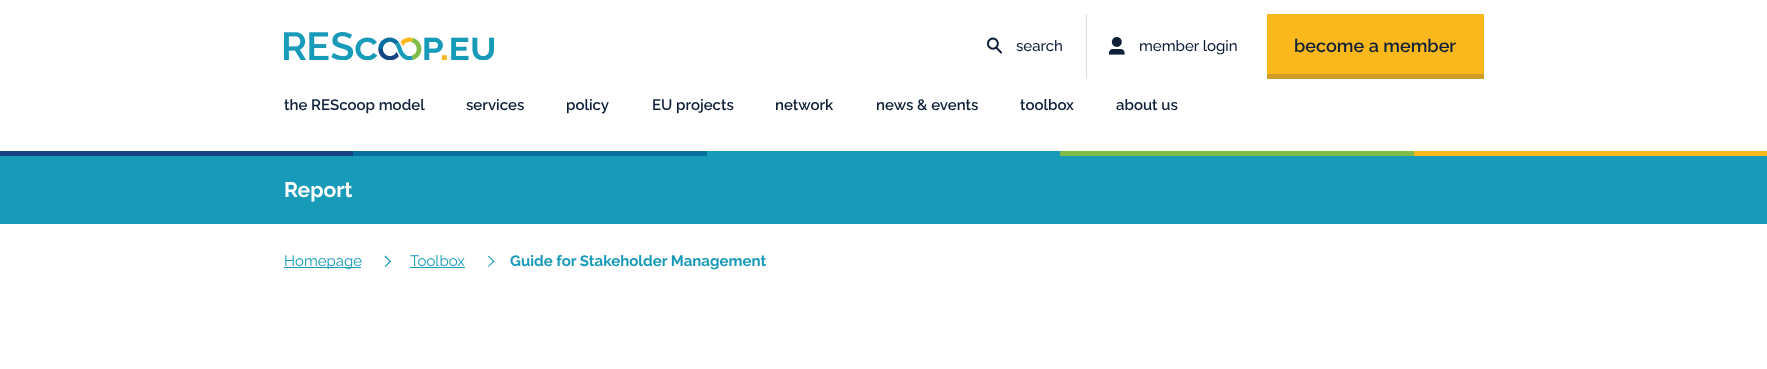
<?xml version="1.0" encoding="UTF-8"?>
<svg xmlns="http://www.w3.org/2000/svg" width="1767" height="369">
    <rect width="100%" height="100%" fill="#FFFFFF"/>
    <image x="0" y="151" width="1767" height="5" href="img_01.png"/>
    <image x="284" y="32" width="210" height="28" href="img_02.png"/>
    <image x="987" y="37" width="15" height="17" href="img_03.png"/>
    <text x="1016" y="51" font-family="Raleway" font-size="15" font-weight="500" fill="#0E1F38">search</text>
    <rect x="1086" y="14" width="1" height="65" fill="#D8DCE1"/>
    <image x="1109" y="37" width="16" height="18" href="img_04.png"/>
    <text x="1139" y="51" font-family="Raleway" font-size="15" font-weight="500" fill="#0E1F38">member login</text>
    <rect x="1267" y="14" width="217" height="60" fill="#FBB81D"/>
    <rect x="1267" y="74" width="217" height="5" fill="#CE9C27"/>
    <text x="1294" y="52" font-family="Raleway" font-size="18" font-weight="600" fill="#0E1F38">become a member</text>
    <text x="284" y="110" font-family="Raleway" font-size="15" font-weight="600" fill="#0E1F38">the REScoop model</text>
    <text x="466" y="110" font-family="Raleway" font-size="15" font-weight="600" fill="#0E1F38">services</text>
    <text x="566" y="110" font-family="Raleway" font-size="15" font-weight="600" fill="#0E1F38">policy</text>
    <text x="652" y="110" font-family="Raleway" font-size="15" font-weight="600" fill="#0E1F38">EU projects</text>
    <text x="775" y="110" font-family="Raleway" font-size="15" font-weight="600" fill="#0E1F38">network</text>
    <text x="876" y="110" font-family="Raleway" font-size="15" font-weight="600" fill="#0E1F38">news &amp; events</text>
    <text x="1020" y="110" font-family="Raleway" font-size="15" font-weight="600" fill="#0E1F38">toolbox</text>
    <text x="1116" y="110" font-family="Raleway" font-size="15" font-weight="600" fill="#0E1F38">about us</text>
    <rect x="0" y="156" width="1767" height="68" fill="#189BB9"/>
    <text x="284" y="197" font-family="Raleway" font-size="21" font-weight="700" fill="#FFFFFF">Report</text>
    <rect x="284" y="267" width="77" height="1" fill="#189BB9"/>
    <text x="284" y="266" font-family="Raleway" font-size="15" fill="#189BB9">Homepage</text>
    <path d="M 385.5 255.5 L 391 261.5 L 390 262 L 384.5 256.5 Z" fill="#189BB9"/>
    <path d="M 390 260.5 L 391 261.5 L 385.5 267 L 384.5 266.5 Z" fill="#189BB9"/>
    <text x="410" y="266" font-family="Raleway" font-size="15" fill="#189BB9">Toolbox</text>
    <rect x="410" y="267" width="55" height="1" fill="#189BB9"/>
    <path d="M 488.5 255.5 L 494.5 261.5 L 493.5 262 L 488 256.5 Z" fill="#189BB9"/>
    <path d="M 493.5 260.5 L 494.5 261.5 L 488.5 267 L 488 266.5 Z" fill="#189BB9"/>
    <text x="510" y="266" font-family="Raleway" font-size="15" font-weight="700" fill="#189BB9">Guide for Stakeholder Management</text>
</svg>
